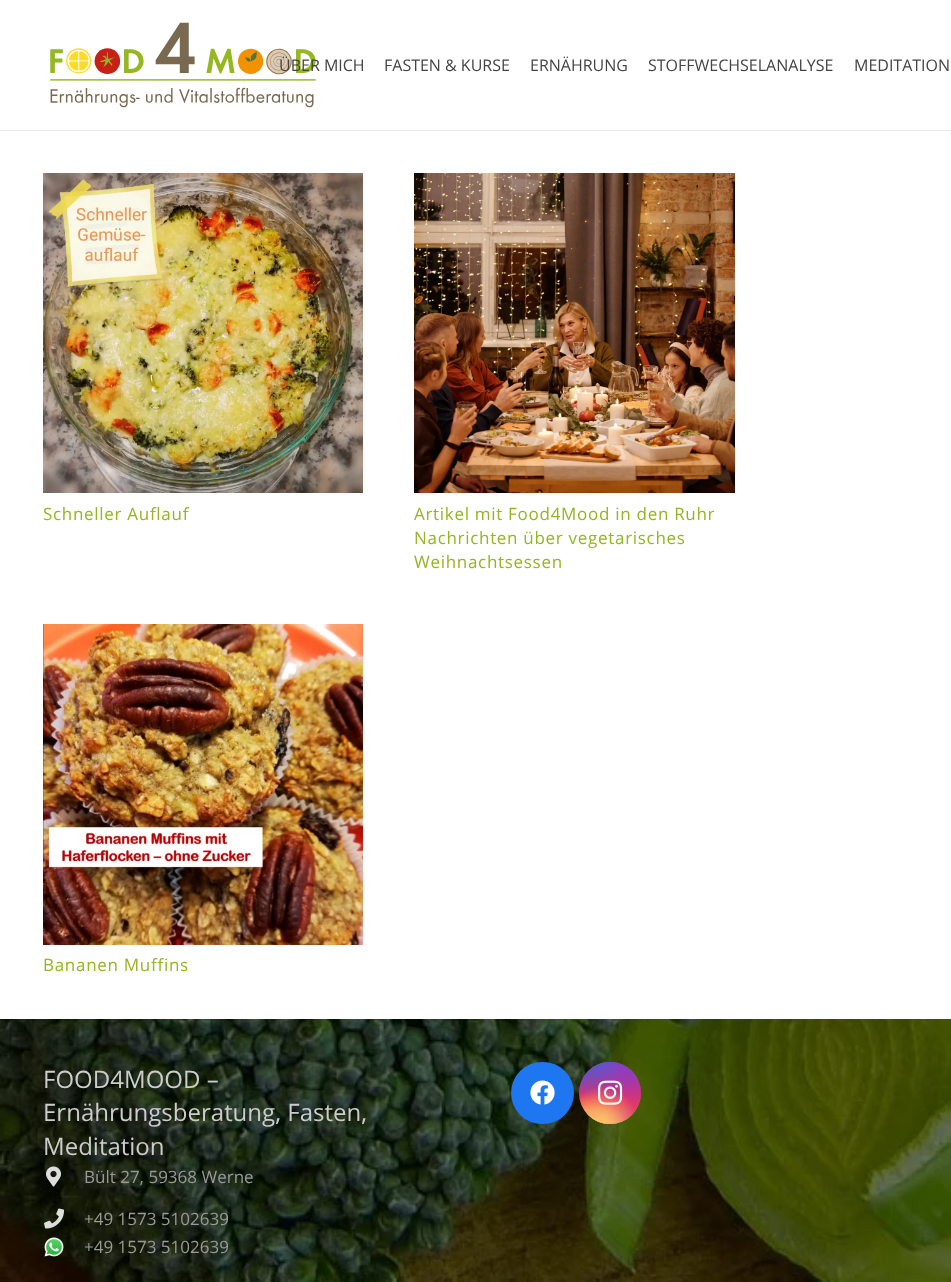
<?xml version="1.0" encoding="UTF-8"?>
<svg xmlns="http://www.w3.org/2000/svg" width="951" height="1282">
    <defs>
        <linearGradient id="g1" gradientUnits="userSpaceOnUse" x1="610" y1="1062" x2="610" y2="1124"><stop offset="0" stop-color="#6559CA"/><stop offset="0.3" stop-color="#BC318F"/><stop offset="0.5" stop-color="#E42E66"/><stop offset="0.7" stop-color="#FA5332"/><stop offset="1" stop-color="#FFDC80"/></linearGradient>
        <radialGradient id="g2" gradientUnits="userSpaceOnUse" cx="641" cy="1124" r="88"><stop offset="0" stop-color="#D9317A"/><stop offset="1" stop-color="#D9317A" stop-opacity="0"/></radialGradient>
        <radialGradient id="g3" gradientUnits="userSpaceOnUse" cx="0" cy="0" r="1" gradientTransform="matrix(53 0 0 105 616 1050)"><stop offset="0" stop-color="#893DC2"/><stop offset="0.5" stop-color="#893DC2" stop-opacity="0"/></radialGradient>
        <radialGradient id="g4" gradientUnits="userSpaceOnUse" cx="641" cy="1062" r="88"><stop offset="0" stop-color="#893DC2"/><stop offset="0.5" stop-color="#893DC2" stop-opacity="0"/></radialGradient>
        <radialGradient id="g5" gradientUnits="userSpaceOnUse" cx="0" cy="0" r="1" gradientTransform="matrix(70 0 0 132 591 1031)"><stop offset="0" stop-color="#5258CF"/><stop offset="0.5" stop-color="#5258CF" stop-opacity="0"/></radialGradient>
        <radialGradient id="g6" gradientUnits="userSpaceOnUse" cx="0" cy="0" r="1" gradientTransform="matrix(88 0 0 110 579 1047)"><stop offset="0" stop-color="#5258CF"/><stop offset="0.5" stop-color="#5258CF" stop-opacity="0"/></radialGradient>
        <radialGradient id="g7" gradientUnits="userSpaceOnUse" cx="585" cy="1149" r="103"><stop offset="0" stop-color="#FEDA7E"/><stop offset="0.5" stop-color="#FEDA7E" stop-opacity="0"/></radialGradient>
        <radialGradient id="g8" gradientUnits="userSpaceOnUse" cx="601" cy="1124" r="74"><stop offset="0" stop-color="#FEC564"/><stop offset="0.5" stop-color="#FEC564" stop-opacity="0"/></radialGradient>
    </defs>
    <rect width="100%" height="100%" fill="#FFFFFF"/>
    <rect x="0" y="130" width="951" height="1" fill="#EBEBEB"/>
    <image x="50" y="22" width="266" height="86" href="img_01.png"/>
    <text x="279" y="71" font-family="'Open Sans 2'" font-size="16" fill="#444444">ÜBER MICH</text>
    <text x="384" y="71" font-family="'Open Sans 2'" font-size="16" fill="#444444">FASTEN &amp; KURSE</text>
    <text x="530" y="71" font-family="'Open Sans 2'" font-size="16" fill="#444444">ERNÄHRUNG</text>
    <text x="648" y="71" font-family="'Open Sans 2'" font-size="16" fill="#444444">STOFFWECHSELANALYSE</text>
    <text x="854" y="71" font-family="'Open Sans 2'" font-size="16" fill="#444444">MEDITATION</text>
    <image x="43" y="173" width="320" height="320" href="img_02.png"/>
    <text x="43" y="520" font-family="Open Sans" font-size="17" letter-spacing="0.7" fill="#94B622">Schneller Auflauf</text>
    <image x="414" y="173" width="321" height="320" href="img_03.png"/>
    <text font-family="Open Sans" font-size="17" letter-spacing="0.7" fill="#94B622">
        <tspan x="414" y="520">Artikel mit Food4Mood in den Ruhr</tspan>
        <tspan x="414" y="544">Nachrichten über vegetarisches</tspan>
        <tspan x="414" y="568">Weihnachtsessen</tspan>
    </text>
    <image x="43" y="624" width="320" height="321" href="img_04.png"/>
    <text x="43" y="971" font-family="Open Sans" font-size="17" letter-spacing="0.7" fill="#94B622">Bananen Muffins</text>
    <image x="0" y="1019" width="951" height="263" href="img_05.png"/>
    <text font-family="Open Sans" font-size="24" fill="#CCCCCC">
        <tspan x="43" y="1088">FOOD4MOOD –</tspan>
        <tspan x="43" y="1121">Ernährungsberatung, Fasten,</tspan>
        <tspan x="43" y="1155">Meditation</tspan>
    </text>
    <image x="46" y="1166" width="15" height="21" href="img_06.png"/>
    <text x="84" y="1183" font-family="'Open Sans 2'" font-size="17" fill="#999999">Bült 27, 59368 Werne</text>
    <image x="44" y="1208" width="20" height="21" href="img_07.png"/>
    <text x="84" y="1225" font-family="'Open Sans 2'" font-size="17" fill="#999999">+49 1573 5102639</text>
    <image x="44" y="1237" width="20" height="20" href="img_08.png"/>
    <text x="84" y="1253" font-family="'Open Sans 2'" font-size="17" fill="#999999">+49 1573 5102639</text>
    <rect x="511" y="1062" width="63" height="62" rx="31" fill="#1E77F0"/>
    <image x="530" y="1080" width="25" height="25" href="img_09.png"/>
    <circle cx="610" cy="1093" r="31" fill="url(#g1)"/>
    <circle cx="610" cy="1093" r="31" fill="url(#g2)"/>
    <circle cx="610" cy="1093" r="31" fill="url(#g3)"/>
    <circle cx="610" cy="1093" r="31" fill="url(#g4)"/>
    <circle cx="610" cy="1093" r="31" fill="url(#g5)"/>
    <circle cx="610" cy="1093" r="31" fill="url(#g6)"/>
    <circle cx="610" cy="1093" r="31" fill="url(#g7)"/>
    <circle cx="610" cy="1093" r="31" fill="url(#g8)"/>
    <image x="598" y="1080" width="25" height="25" href="img_10.png"/>
</svg>
